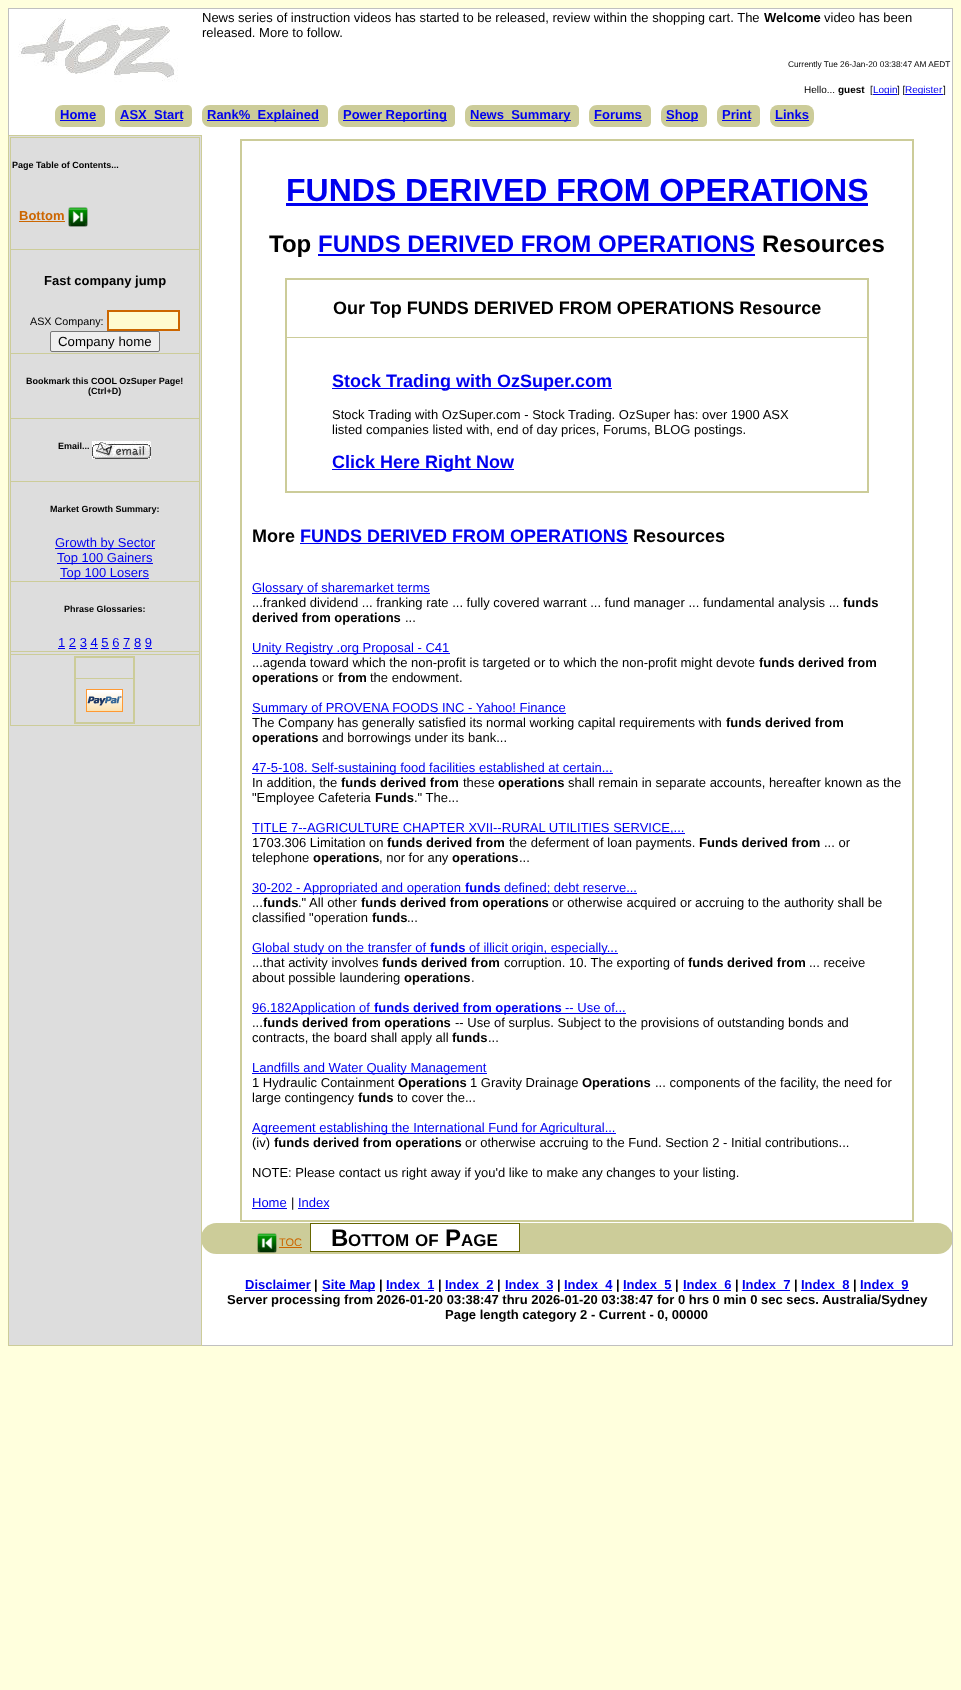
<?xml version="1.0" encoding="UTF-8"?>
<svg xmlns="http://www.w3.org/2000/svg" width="961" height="1690">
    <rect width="100%" height="100%" fill="#FFFFDD"/>
    <rect x="9" y="9" width="943" height="1336" fill="#FFFFFF"/>
    <rect x="8" y="8" width="945" height="1" fill="#C0C0C0"/>
    <rect x="201" y="1223" width="752" height="31" rx="15.5" fill="#CCCC99"/>
    <rect x="952" y="8" width="1" height="1338" fill="#C0C0C0"/>
    <rect x="202" y="1345" width="751" height="1" fill="#C0C0C0"/>
    <rect x="8" y="8" width="1" height="127" fill="#C0C0C0"/>
    <image x="18" y="18" width="160" height="64" href="img_01.png"/>
    <text x="202" y="22" font-family="Liberation Sans" font-size="13" fill="#000000">News series of instruction videos has started to be released, review within the shopping cart. The</text>
    <text x="764" y="22" font-family="Liberation Sans" font-size="13" font-weight="700" fill="#000000">Welcome</text>
    <text x="824" y="22" font-family="Liberation Sans" font-size="13" fill="#000000">video has been</text>
    <text x="202" y="37" font-family="Liberation Sans" font-size="13" fill="#000000">released. More to follow.</text>
    <text x="788" y="67" font-family="Liberation Sans" font-size="8.3" fill="#000000">Currently Tue 26-Jan-20 03:38:47 AM AEDT</text>
    <text x="804" y="93" font-family="Liberation Sans" font-size="10" fill="#000000">Hello...</text>
    <text x="838" y="93" font-family="Liberation Sans" font-size="10" font-weight="700" fill="#000000">guest</text>
    <text x="870" y="93" font-family="Liberation Sans" font-size="10" fill="#000000">[</text>
    <rect x="873" y="94" width="24" height="1" fill="#0000EE"/>
    <text x="873" y="93" font-family="Liberation Sans" font-size="10" fill="#0000EE">Login</text>
    <text x="897" y="93" font-family="Liberation Sans" font-size="10" fill="#000000">] [</text>
    <rect x="905" y="94" width="38" height="1" fill="#0000EE"/>
    <text x="905" y="93" font-family="Liberation Sans" font-size="10" fill="#0000EE">Register</text>
    <text x="943" y="93" font-family="Liberation Sans" font-size="10" fill="#000000">]</text>
    <path d="M 63 105 H 96 V 127 H 63 C 58.5 127 55 123.5 55 119 V 113 C 55 108.5 58.5 105 63 105 Z" fill="#CCCC99"/>
    <text x="60" y="119" font-family="Liberation Sans" font-size="13" font-weight="700" fill="#0000EE">Home</text>
    <path d="M 96 105 H 100.5 C 103 105 105 107 105 109.5 V 122.5 C 105 125 103 127 100.5 127 H 96 Z" fill="#CCCC99"/>
    <rect x="60" y="120" width="36" height="1" fill="#0000EE"/>
    <path d="M 123 105 H 183 V 127 H 123 C 118.5 127 115 123.5 115 119 V 113 C 115 108.5 118.5 105 123 105 Z" fill="#CCCC99"/>
    <path d="M 183 105 H 187.5 C 190 105 192 107 192 109.5 V 122.5 C 192 125 190 127 187.5 127 H 183 Z" fill="#CCCC99"/>
    <rect x="120" y="120" width="63" height="1" fill="#0000EE"/>
    <text x="120" y="119" font-family="Liberation Sans" font-size="13" font-weight="700" fill="#0000EE">ASX_Start</text>
    <path d="M 210 105 H 319 V 127 H 210 C 205.5 127 202 123.5 202 119 V 113 C 202 108.5 205.5 105 210 105 Z" fill="#CCCC99"/>
    <rect x="207" y="120" width="112" height="1" fill="#0000EE"/>
    <text x="207" y="119" font-family="Liberation Sans" font-size="13" font-weight="700" fill="#0000EE">Rank%_Explained</text>
    <path d="M 319 105 H 323.5 C 326 105 328 107 328 109.5 V 122.5 C 328 125 326 127 323.5 127 H 319 Z" fill="#CCCC99"/>
    <path d="M 346 105 H 447 V 127 H 346 C 341.5 127 338 123.5 338 119 V 113 C 338 108.5 341.5 105 346 105 Z" fill="#CCCC99"/>
    <rect x="343" y="120" width="104" height="1" fill="#0000EE"/>
    <text x="343" y="119" font-family="Liberation Sans" font-size="13" font-weight="700" fill="#0000EE">Power Reporting</text>
    <path d="M 447 105 H 451 C 453 105 455 107 455 109 V 123 C 455 125 453 127 451 127 H 447 Z" fill="#CCCC99"/>
    <path d="M 473 105 H 571 V 127 H 473 C 468.5 127 465 123.5 465 119 V 113 C 465 108.5 468.5 105 473 105 Z" fill="#CCCC99"/>
    <rect x="470" y="120" width="101" height="1" fill="#0000EE"/>
    <text x="470" y="119" font-family="Liberation Sans" font-size="13" font-weight="700" fill="#0000EE">News_Summary</text>
    <path d="M 571 105 H 575 C 577 105 579 107 579 109 V 123 C 579 125 577 127 575 127 H 571 Z" fill="#CCCC99"/>
    <path d="M 597 105 H 642 V 127 H 597 C 592.5 127 589 123.5 589 119 V 113 C 589 108.5 592.5 105 597 105 Z" fill="#CCCC99"/>
    <text x="594" y="119" font-family="Liberation Sans" font-size="13" font-weight="700" fill="#0000EE">Forums</text>
    <path d="M 642 105 H 646.5 C 649 105 651 107 651 109.5 V 122.5 C 651 125 649 127 646.5 127 H 642 Z" fill="#CCCC99"/>
    <rect x="594" y="120" width="48" height="1" fill="#0000EE"/>
    <path d="M 669 105 H 698 V 127 H 669 C 664.5 127 661 123.5 661 119 V 113 C 661 108.5 664.5 105 669 105 Z" fill="#CCCC99"/>
    <rect x="666" y="120" width="32" height="1" fill="#0000EE"/>
    <text x="666" y="119" font-family="Liberation Sans" font-size="13" font-weight="700" fill="#0000EE">Shop</text>
    <path d="M 698 105 H 702.5 C 705 105 707 107 707 109.5 V 122.5 C 707 125 705 127 702.5 127 H 698 Z" fill="#CCCC99"/>
    <path d="M 725 105 H 751 V 127 H 725 C 720.5 127 717 123.5 717 119 V 113 C 717 108.5 720.5 105 725 105 Z" fill="#CCCC99"/>
    <path d="M 751 105 H 755.5 C 758 105 760 107 760 109.5 V 122.5 C 760 125 758 127 755.5 127 H 751 Z" fill="#CCCC99"/>
    <text x="722" y="119" font-family="Liberation Sans" font-size="13" font-weight="700" fill="#0000EE">Print</text>
    <rect x="722" y="120" width="29" height="1" fill="#0000EE"/>
    <rect x="770" y="105" width="44" height="22" rx="8" fill="#CCCC99"/>
    <text x="775" y="119" font-family="Liberation Sans" font-size="13" font-weight="700" fill="#0000EE">Links</text>
    <rect x="775" y="120" width="34" height="1" fill="#0000EE"/>
    <rect x="9" y="136" width="192" height="1209" fill="#DDDDDD"/>
    <rect x="8" y="135" width="194" height="1" fill="#CCCC99"/>
    <rect x="201" y="135" width="1" height="1211" fill="#CCCC99"/>
    <rect x="8" y="1345" width="194" height="1" fill="#CCCC99"/>
    <rect x="8" y="135" width="1" height="1211" fill="#CCCC99"/>
    <rect x="10" y="137" width="190" height="1" fill="#CCCC99"/>
    <rect x="10" y="249" width="190" height="1" fill="#CCCC99"/>
    <rect x="10" y="353" width="190" height="1" fill="#CCCC99"/>
    <rect x="10" y="418" width="190" height="1" fill="#CCCC99"/>
    <rect x="10" y="481" width="190" height="1" fill="#CCCC99"/>
    <rect x="10" y="581" width="190" height="1" fill="#CCCC99"/>
    <rect x="10" y="651" width="190" height="1" fill="#CCCC99"/>
    <rect x="10" y="654" width="190" height="1" fill="#CCCC99"/>
    <rect x="199" y="654" width="1" height="72" fill="#CCCC99"/>
    <rect x="199" y="651" width="1" height="4" fill="#CCCC99"/>
    <rect x="199" y="581" width="1" height="71" fill="#CCCC99"/>
    <rect x="199" y="481" width="1" height="101" fill="#CCCC99"/>
    <rect x="199" y="418" width="1" height="64" fill="#CCCC99"/>
    <rect x="199" y="353" width="1" height="66" fill="#CCCC99"/>
    <rect x="199" y="249" width="1" height="105" fill="#CCCC99"/>
    <rect x="199" y="137" width="1" height="113" fill="#CCCC99"/>
    <rect x="10" y="725" width="190" height="1" fill="#CCCC99"/>
    <rect x="10" y="654" width="1" height="72" fill="#CCCC99"/>
    <rect x="10" y="651" width="1" height="4" fill="#CCCC99"/>
    <rect x="10" y="581" width="1" height="71" fill="#CCCC99"/>
    <rect x="10" y="481" width="1" height="101" fill="#CCCC99"/>
    <rect x="10" y="418" width="1" height="64" fill="#CCCC99"/>
    <rect x="10" y="353" width="1" height="66" fill="#CCCC99"/>
    <rect x="10" y="249" width="1" height="105" fill="#CCCC99"/>
    <rect x="10" y="137" width="1" height="113" fill="#CCCC99"/>
    <text x="12" y="168" font-family="Liberation Sans" font-size="9" font-weight="700" fill="#000000">Page Table of Contents...</text>
    <text x="19" y="220" font-family="Liberation Sans" font-size="13" font-weight="700" fill="#CC6600">Bottom</text>
    <rect x="19" y="221" width="46" height="1" fill="#CC6600"/>
    <image x="68" y="207" width="20" height="20" href="img_02.png"/>
    <text x="44" y="285" font-family="Liberation Sans" font-size="13" font-weight="700" fill="#000000">Fast company jump</text>
    <text x="30" y="325" font-family="Liberation Sans" font-size="10.75" fill="#000000">ASX Company:</text>
    <rect x="108" y="311" width="71" height="19" fill="#FFFBD0" stroke="#CC6600" stroke-width="2"/>
    <rect x="50.5" y="331.5" width="109" height="20" rx="1.5" fill="#EFEFEF" stroke="#767676"/>
    <text x="58" y="346" font-family="Liberation Sans" font-size="13.25" fill="#000000">Company home</text>
    <text x="26" y="384" font-family="Liberation Sans" font-size="9" font-weight="700" fill="#000000">Bookmark this COOL OzSuper Page!</text>
    <text x="88" y="394" font-family="Liberation Sans" font-size="9" font-weight="700" fill="#000000">(Ctrl+D)</text>
    <text x="58" y="449" font-family="Liberation Sans" font-size="9" font-weight="700" fill="#000000">Email...</text>
    <image x="92" y="441" width="59" height="18" href="img_03.png"/>
    <text x="50" y="512" font-family="Liberation Sans" font-size="9" font-weight="700" fill="#000000">Market Growth Summary:</text>
    <rect x="55" y="548" width="100" height="1" fill="#0000EE"/>
    <text x="55" y="547" font-family="Liberation Sans" font-size="13" fill="#0000EE">Growth by Sector</text>
    <rect x="57" y="563" width="96" height="1" fill="#0000EE"/>
    <text x="57" y="562" font-family="Liberation Sans" font-size="13" fill="#0000EE">Top 100 Gainers</text>
    <rect x="60" y="578" width="89" height="1" fill="#0000EE"/>
    <text x="60" y="577" font-family="Liberation Sans" font-size="13" fill="#0000EE">Top 100 Losers</text>
    <text x="64" y="612" font-family="Liberation Sans" font-size="9" font-weight="700" fill="#000000">Phrase Glossaries:</text>
    <text x="58" y="647" font-family="Liberation Sans" font-size="13" fill="#0000EE">1 2 3 4 5 6 7 8 9</text>
    <rect x="58" y="648" width="7" height="1" fill="#0000EE"/>
    <rect x="69" y="648" width="7" height="1" fill="#0000EE"/>
    <rect x="80" y="648" width="7" height="1" fill="#0000EE"/>
    <rect x="90" y="648" width="8" height="1" fill="#0000EE"/>
    <rect x="101" y="648" width="8" height="1" fill="#0000EE"/>
    <rect x="112" y="648" width="7" height="1" fill="#0000EE"/>
    <rect x="123" y="648" width="7" height="1" fill="#0000EE"/>
    <rect x="134" y="648" width="7" height="1" fill="#0000EE"/>
    <rect x="145" y="648" width="7" height="1" fill="#0000EE"/>
    <rect x="74" y="656" width="61" height="2" fill="#CCCC99"/>
    <rect x="75" y="678" width="60" height="1" fill="#CCCC99"/>
    <rect x="133" y="656" width="2" height="68" fill="#CCCC99"/>
    <rect x="74" y="722" width="61" height="2" fill="#CCCC99"/>
    <rect x="74" y="656" width="2" height="68" fill="#CCCC99"/>
    <image x="86" y="689" width="37" height="23" href="img_04.png"/>
    <rect x="240" y="139" width="674" height="2" fill="#CCCC99"/>
    <rect x="912" y="139" width="2" height="1083" fill="#CCCC99"/>
    <rect x="240" y="1220" width="674" height="2" fill="#CCCC99"/>
    <rect x="240" y="139" width="2" height="1083" fill="#CCCC99"/>
    <text x="286" y="201" font-family="Liberation Sans" font-size="32" font-weight="700" fill="#0000EE">FUNDS DERIVED FROM OPERATIONS</text>
    <rect x="286" y="203" width="582" height="3" fill="#0000EE"/>
    <text x="269" y="252" font-family="Liberation Sans" font-size="24" font-weight="700" fill="#000000">Top</text>
    <text x="318" y="252" font-family="Liberation Sans" font-size="24" font-weight="700" fill="#0000EE">FUNDS DERIVED FROM OPERATIONS</text>
    <rect x="318" y="254" width="437" height="2" fill="#0000EE"/>
    <text x="762" y="252" font-family="Liberation Sans" font-size="24" font-weight="700" fill="#000000">Resources</text>
    <rect x="285" y="278" width="584" height="2" fill="#CCCC99"/>
    <rect x="285" y="337" width="584" height="1" fill="#CCCC99"/>
    <rect x="867" y="278" width="2" height="215" fill="#CCCC99"/>
    <rect x="285" y="491" width="584" height="2" fill="#CCCC99"/>
    <rect x="285" y="278" width="2" height="215" fill="#CCCC99"/>
    <text x="333" y="314" font-family="Liberation Sans" font-size="18" font-weight="700" fill="#000000">Our Top FUNDS DERIVED FROM OPERATIONS Resource</text>
    <rect x="332" y="388" width="280" height="1" fill="#0000EE"/>
    <text x="332" y="387" font-family="Liberation Sans" font-size="18" font-weight="700" fill="#0000EE">Stock Trading with OzSuper.com</text>
    <text font-family="Liberation Sans" font-size="13" fill="#000000">
        <tspan x="332" y="419">Stock Trading with OzSuper.com - Stock Trading. OzSuper has: over 1900 ASX</tspan>
        <tspan x="332" y="434">listed companies listed with, end of day prices, Forums, BLOG postings.</tspan>
    </text>
    <rect x="332" y="469" width="182" height="1" fill="#0000EE"/>
    <text x="332" y="468" font-family="Liberation Sans" font-size="18" font-weight="700" fill="#0000EE">Click Here Right Now</text>
    <text x="252" y="542" font-family="Liberation Sans" font-size="18" font-weight="700" fill="#000000">More</text>
    <text x="300" y="542" font-family="Liberation Sans" font-size="18" font-weight="700" fill="#0000EE">FUNDS DERIVED FROM OPERATIONS</text>
    <rect x="300" y="543" width="328" height="1" fill="#0000EE"/>
    <text x="633" y="542" font-family="Liberation Sans" font-size="18" font-weight="700" fill="#000000">Resources</text>
    <rect x="252" y="593" width="178" height="1" fill="#0000EE"/>
    <text x="252" y="592" font-family="Liberation Sans" font-size="13" fill="#0000EE">Glossary of sharemarket terms</text>
    <text x="252" y="607" font-family="Liberation Sans" font-size="13" fill="#000000">...franked dividend ... franking rate ... fully covered warrant ... fund manager ... fundamental analysis ...</text>
    <text x="843" y="607" font-family="Liberation Sans" font-size="13" font-weight="700" fill="#000000">funds</text>
    <text x="252" y="622" font-family="Liberation Sans" font-size="13" font-weight="700" fill="#000000">derived from operations</text>
    <text x="405" y="622" font-family="Liberation Sans" font-size="13" fill="#000000">...</text>
    <rect x="252" y="653" width="198" height="1" fill="#0000EE"/>
    <text x="252" y="652" font-family="Liberation Sans" font-size="13" fill="#0000EE">Unity Registry .org Proposal - C41</text>
    <text x="252" y="667" font-family="Liberation Sans" font-size="13" fill="#000000">...agenda toward which the non-profit is targeted or to which the non-profit might devote</text>
    <text x="759" y="667" font-family="Liberation Sans" font-size="13" font-weight="700" fill="#000000">funds derived from</text>
    <text x="252" y="682" font-family="Liberation Sans" font-size="13" font-weight="700" fill="#000000">operations</text>
    <text x="322" y="682" font-family="Liberation Sans" font-size="13" fill="#000000">or</text>
    <text x="338" y="682" font-family="Liberation Sans" font-size="13" font-weight="700" fill="#000000">from</text>
    <text x="370" y="682" font-family="Liberation Sans" font-size="13" fill="#000000">the endowment.</text>
    <rect x="252" y="713" width="314" height="1" fill="#0000EE"/>
    <text x="252" y="712" font-family="Liberation Sans" font-size="13" fill="#0000EE">Summary of PROVENA FOODS INC - Yahoo! Finance</text>
    <text x="252" y="727" font-family="Liberation Sans" font-size="13" fill="#000000">The Company has generally satisfied its normal working capital requirements with</text>
    <text x="726" y="727" font-family="Liberation Sans" font-size="13" font-weight="700" fill="#000000">funds derived from</text>
    <text x="252" y="742" font-family="Liberation Sans" font-size="13" font-weight="700" fill="#000000">operations</text>
    <text x="322" y="742" font-family="Liberation Sans" font-size="13" fill="#000000">and borrowings under its bank...</text>
    <rect x="252" y="773" width="361" height="1" fill="#0000EE"/>
    <text x="252" y="772" font-family="Liberation Sans" font-size="13" fill="#0000EE">47-5-108. Self-sustaining food facilities established at certain...</text>
    <text x="252" y="787" font-family="Liberation Sans" font-size="13" fill="#000000">In addition, the</text>
    <text x="341" y="787" font-family="Liberation Sans" font-size="13" font-weight="700" fill="#000000">funds derived from</text>
    <text x="463" y="787" font-family="Liberation Sans" font-size="13" fill="#000000">these</text>
    <text x="498" y="787" font-family="Liberation Sans" font-size="13" font-weight="700" fill="#000000">operations</text>
    <text x="568" y="787" font-family="Liberation Sans" font-size="13" fill="#000000">shall remain in separate accounts, hereafter known as the</text>
    <text x="252" y="802" font-family="Liberation Sans" font-size="13" fill="#000000">"Employee Cafeteria</text>
    <text x="375" y="802" font-family="Liberation Sans" font-size="13" font-weight="700" fill="#000000">Funds</text>
    <text x="414" y="802" font-family="Liberation Sans" font-size="13" fill="#000000">." The...</text>
    <rect x="252" y="833" width="433" height="1" fill="#0000EE"/>
    <text x="252" y="832" font-family="Liberation Sans" font-size="13" fill="#0000EE">TITLE 7--AGRICULTURE CHAPTER XVII--RURAL UTILITIES SERVICE,...</text>
    <text x="252" y="847" font-family="Liberation Sans" font-size="13" fill="#000000">1703.306 Limitation on</text>
    <text x="387" y="847" font-family="Liberation Sans" font-size="13" font-weight="700" fill="#000000">funds derived from</text>
    <text x="509" y="847" font-family="Liberation Sans" font-size="13" fill="#000000">the deferment of loan payments.</text>
    <text x="699" y="847" font-family="Liberation Sans" font-size="13" font-weight="700" fill="#000000">Funds derived from</text>
    <text x="824" y="847" font-family="Liberation Sans" font-size="13" fill="#000000">... or</text>
    <text x="252" y="862" font-family="Liberation Sans" font-size="13" fill="#000000">telephone</text>
    <text x="313" y="862" font-family="Liberation Sans" font-size="13" font-weight="700" fill="#000000">operations</text>
    <text x="379" y="862" font-family="Liberation Sans" font-size="13" fill="#000000">, nor for any</text>
    <text x="452" y="862" font-family="Liberation Sans" font-size="13" font-weight="700" fill="#000000">operations</text>
    <text x="519" y="862" font-family="Liberation Sans" font-size="13" fill="#000000">...</text>
    <rect x="252" y="893" width="385" height="1" fill="#0000EE"/>
    <text x="252" y="892" font-family="Liberation Sans" font-size="13" fill="#0000EE">30-202 - Appropriated and operation</text>
    <text x="465" y="892" font-family="Liberation Sans" font-size="13" font-weight="700" fill="#0000EE">funds</text>
    <text x="504" y="892" font-family="Liberation Sans" font-size="13" fill="#0000EE">defined; debt reserve...</text>
    <text x="252" y="907" font-family="Liberation Sans" font-size="13" fill="#000000">...</text>
    <text x="263" y="907" font-family="Liberation Sans" font-size="13" font-weight="700" fill="#000000">funds</text>
    <text x="298" y="907" font-family="Liberation Sans" font-size="13" fill="#000000">." All other</text>
    <text x="361" y="907" font-family="Liberation Sans" font-size="13" font-weight="700" fill="#000000">funds derived from operations</text>
    <text x="552" y="907" font-family="Liberation Sans" font-size="13" fill="#000000">or otherwise acquired or accruing to the authority shall be</text>
    <text x="252" y="922" font-family="Liberation Sans" font-size="13" fill="#000000">classified "operation</text>
    <text x="372" y="922" font-family="Liberation Sans" font-size="13" font-weight="700" fill="#000000">funds</text>
    <text x="407" y="922" font-family="Liberation Sans" font-size="13" fill="#000000">...</text>
    <rect x="252" y="953" width="366" height="1" fill="#0000EE"/>
    <text x="252" y="952" font-family="Liberation Sans" font-size="13" fill="#0000EE">Global study on the transfer of</text>
    <text x="430" y="952" font-family="Liberation Sans" font-size="13" font-weight="700" fill="#0000EE">funds</text>
    <text x="469" y="952" font-family="Liberation Sans" font-size="13" fill="#0000EE">of illicit origin, especially...</text>
    <text x="252" y="967" font-family="Liberation Sans" font-size="13" fill="#000000">...that activity involves</text>
    <text x="382" y="967" font-family="Liberation Sans" font-size="13" font-weight="700" fill="#000000">funds derived from</text>
    <text x="504" y="967" font-family="Liberation Sans" font-size="13" fill="#000000">corruption. 10. The exporting of</text>
    <text x="688" y="967" font-family="Liberation Sans" font-size="13" font-weight="700" fill="#000000">funds derived from</text>
    <text x="809" y="967" font-family="Liberation Sans" font-size="13" fill="#000000">... receive</text>
    <text x="252" y="982" font-family="Liberation Sans" font-size="13" fill="#000000">about possible laundering</text>
    <text x="404" y="982" font-family="Liberation Sans" font-size="13" font-weight="700" fill="#000000">operations</text>
    <text x="471" y="982" font-family="Liberation Sans" font-size="13" fill="#000000">.</text>
    <rect x="252" y="1013" width="374" height="1" fill="#0000EE"/>
    <text x="252" y="1012" font-family="Liberation Sans" font-size="13" fill="#0000EE">96.182Application of</text>
    <text x="374" y="1012" font-family="Liberation Sans" font-size="13" font-weight="700" fill="#0000EE">funds derived from operations</text>
    <text x="565" y="1012" font-family="Liberation Sans" font-size="13" fill="#0000EE">-- Use of...</text>
    <text x="252" y="1027" font-family="Liberation Sans" font-size="13" fill="#000000">...</text>
    <text x="263" y="1027" font-family="Liberation Sans" font-size="13" font-weight="700" fill="#000000">funds derived from operations</text>
    <text x="455" y="1027" font-family="Liberation Sans" font-size="13" fill="#000000">-- Use of surplus. Subject to the provisions of outstanding bonds and</text>
    <text x="252" y="1042" font-family="Liberation Sans" font-size="13" fill="#000000">contracts, the board shall apply all</text>
    <text x="452" y="1042" font-family="Liberation Sans" font-size="13" font-weight="700" fill="#000000">funds</text>
    <text x="488" y="1042" font-family="Liberation Sans" font-size="13" fill="#000000">...</text>
    <rect x="252" y="1073" width="235" height="1" fill="#0000EE"/>
    <text x="252" y="1072" font-family="Liberation Sans" font-size="13" fill="#0000EE">Landfills and Water Quality Management</text>
    <text x="252" y="1087" font-family="Liberation Sans" font-size="13" fill="#000000">1 Hydraulic Containment</text>
    <text x="398" y="1087" font-family="Liberation Sans" font-size="13" font-weight="700" fill="#000000">Operations</text>
    <text x="470" y="1087" font-family="Liberation Sans" font-size="13" fill="#000000">1 Gravity Drainage</text>
    <text x="582" y="1087" font-family="Liberation Sans" font-size="13" font-weight="700" fill="#000000">Operations</text>
    <text x="655" y="1087" font-family="Liberation Sans" font-size="13" fill="#000000">... components of the facility, the need for</text>
    <text x="252" y="1102" font-family="Liberation Sans" font-size="13" fill="#000000">large contingency</text>
    <text x="358" y="1102" font-family="Liberation Sans" font-size="13" font-weight="700" fill="#000000">funds</text>
    <text x="397" y="1102" font-family="Liberation Sans" font-size="13" fill="#000000">to cover the...</text>
    <rect x="252" y="1133" width="364" height="1" fill="#0000EE"/>
    <text x="252" y="1132" font-family="Liberation Sans" font-size="13" fill="#0000EE">Agreement establishing the International Fund for Agricultural...</text>
    <text x="252" y="1147" font-family="Liberation Sans" font-size="13" fill="#000000">(iv)</text>
    <text x="274" y="1147" font-family="Liberation Sans" font-size="13" font-weight="700" fill="#000000">funds derived from operations</text>
    <text x="465" y="1147" font-family="Liberation Sans" font-size="13" fill="#000000">or otherwise accruing to the Fund. Section 2 - Initial contributions...</text>
    <text x="252" y="1177" font-family="Liberation Sans" font-size="13" fill="#000000">NOTE: Please contact us right away if you'd like to make any changes to your listing.</text>
    <text x="252" y="1207" font-family="Liberation Sans" font-size="13" fill="#0000EE">Home</text>
    <rect x="252" y="1208" width="35" height="1" fill="#0000EE"/>
    <text x="291" y="1207" font-family="Liberation Sans" font-size="13" fill="#000000">|</text>
    <text x="298" y="1207" font-family="Liberation Sans" font-size="13" fill="#0000EE">Index</text>
    <rect x="298" y="1208" width="31" height="1" fill="#0000EE"/>
    <image x="257" y="1233" width="20" height="20" href="img_05.png"/>
    <text x="279" y="1246" font-family="Liberation Sans" font-size="11" fill="#CC6600">TOC</text>
    <rect x="279" y="1247" width="23" height="1" fill="#CC6600"/>
    <rect x="310.5" y="1223.5" width="209" height="28" fill="#FFFFFF" stroke="#666600"/>
    <text x="331" y="1246" font-family="Liberation Sans" font-size="24" font-weight="700" fill="#000000">B</text>
    <text x="348" y="1246" font-family="Liberation Sans" font-size="17" font-weight="700" fill="#000000">OTTOM</text>
    <text x="415" y="1246" font-family="Liberation Sans" font-size="17" font-weight="700" fill="#000000">OF</text>
    <text x="445" y="1246" font-family="Liberation Sans" font-size="24" font-weight="700" fill="#000000">P</text>
    <text x="461" y="1246" font-family="Liberation Sans" font-size="17" font-weight="700" fill="#000000">AGE</text>
    <text x="245" y="1289" font-family="Liberation Sans" font-size="13" font-weight="700" fill="#0000EE">Disclaimer</text>
    <rect x="245" y="1290" width="66" height="1" fill="#0000EE"/>
    <text x="314" y="1289" font-family="Liberation Sans" font-size="13" font-weight="700" fill="#000000">|</text>
    <rect x="322" y="1290" width="53" height="1" fill="#0000EE"/>
    <text x="322" y="1289" font-family="Liberation Sans" font-size="13" font-weight="700" fill="#0000EE">Site Map</text>
    <text x="379" y="1289" font-family="Liberation Sans" font-size="13" font-weight="700" fill="#000000">|</text>
    <rect x="386" y="1290" width="48" height="1" fill="#0000EE"/>
    <text x="386" y="1289" font-family="Liberation Sans" font-size="13" font-weight="700" fill="#0000EE">Index_1</text>
    <text x="438" y="1289" font-family="Liberation Sans" font-size="13" font-weight="700" fill="#000000">|</text>
    <rect x="445" y="1290" width="49" height="1" fill="#0000EE"/>
    <text x="445" y="1289" font-family="Liberation Sans" font-size="13" font-weight="700" fill="#0000EE">Index_2</text>
    <text x="497" y="1289" font-family="Liberation Sans" font-size="13" font-weight="700" fill="#000000">|</text>
    <rect x="505" y="1290" width="48" height="1" fill="#0000EE"/>
    <text x="505" y="1289" font-family="Liberation Sans" font-size="13" font-weight="700" fill="#0000EE">Index_3</text>
    <text x="557" y="1289" font-family="Liberation Sans" font-size="13" font-weight="700" fill="#000000">|</text>
    <rect x="564" y="1290" width="48" height="1" fill="#0000EE"/>
    <text x="564" y="1289" font-family="Liberation Sans" font-size="13" font-weight="700" fill="#0000EE">Index_4</text>
    <text x="616" y="1289" font-family="Liberation Sans" font-size="13" font-weight="700" fill="#000000">|</text>
    <rect x="623" y="1290" width="49" height="1" fill="#0000EE"/>
    <text x="623" y="1289" font-family="Liberation Sans" font-size="13" font-weight="700" fill="#0000EE">Index_5</text>
    <text x="675" y="1289" font-family="Liberation Sans" font-size="13" font-weight="700" fill="#000000">|</text>
    <rect x="683" y="1290" width="48" height="1" fill="#0000EE"/>
    <text x="683" y="1289" font-family="Liberation Sans" font-size="13" font-weight="700" fill="#0000EE">Index_6</text>
    <text x="735" y="1289" font-family="Liberation Sans" font-size="13" font-weight="700" fill="#000000">|</text>
    <rect x="742" y="1290" width="48" height="1" fill="#0000EE"/>
    <text x="742" y="1289" font-family="Liberation Sans" font-size="13" font-weight="700" fill="#0000EE">Index_7</text>
    <text x="794" y="1289" font-family="Liberation Sans" font-size="13" font-weight="700" fill="#000000">|</text>
    <rect x="801" y="1290" width="49" height="1" fill="#0000EE"/>
    <text x="801" y="1289" font-family="Liberation Sans" font-size="13" font-weight="700" fill="#0000EE">Index_8</text>
    <text x="853" y="1289" font-family="Liberation Sans" font-size="13" font-weight="700" fill="#000000">|</text>
    <rect x="860" y="1290" width="49" height="1" fill="#0000EE"/>
    <text x="860" y="1289" font-family="Liberation Sans" font-size="13" font-weight="700" fill="#0000EE">Index_9</text>
    <text x="227" y="1304" font-family="Liberation Sans" font-size="13" font-weight="700" fill="#000000">Server processing from 2026-01-20 03:38:47 thru 2026-01-20 03:38:47 for 0 hrs 0 min 0 sec secs. Australia/Sydney</text>
    <text x="445" y="1319" font-family="Liberation Sans" font-size="13" font-weight="700" fill="#000000">Page length category 2 - Current - 0, 00000</text>
</svg>
